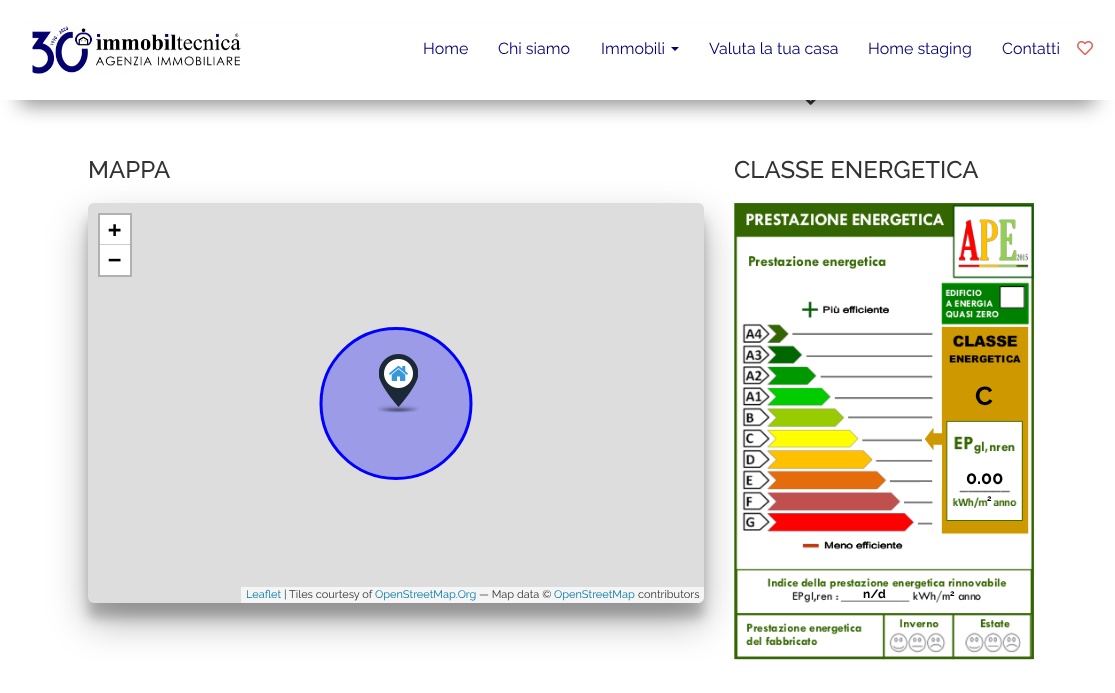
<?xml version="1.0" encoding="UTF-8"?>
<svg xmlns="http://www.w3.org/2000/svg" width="1115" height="693">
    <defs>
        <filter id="blur1" x="-50%" y="-200%" width="200%" height="500%"><feGaussianBlur stdDeviation="10"/></filter>
        <filter id="blur2" x="-50%" y="-200%" width="200%" height="500%"><feGaussianBlur stdDeviation="6"/></filter>
        <filter id="blur3" x="-50%" y="-200%" width="200%" height="500%"><feGaussianBlur stdDeviation="19"/></filter>
    </defs>
    <rect width="100%" height="100%" fill="#FFFFFF"/>
    <image x="805" y="100" width="11" height="5" href="img_03.png"/>
    <rect x="20" y="45" width="1075" height="60" fill="#000000" fill-opacity="0.45" filter="url(#blur1)"/>
    <rect x="0" y="25" width="1115" height="75" fill="#FFFFFF"/>
    <image x="32" y="26" width="209" height="48" href="img_01.png"/>
    <text x="423" y="54" font-family="Raleway" font-size="16" fill="#030073">Home</text>
    <text x="498" y="54" font-family="Raleway" font-size="16" fill="#030073">Chi siamo</text>
    <text x="601" y="54" font-family="Raleway" font-size="16" fill="#030073">Immobili</text>
    <path d="M 671 47 H 679 L 675 51 Z" fill="#030073"/>
    <text x="709" y="54" font-family="Raleway" font-size="16" fill="#030073">Valuta la tua casa</text>
    <text x="868" y="54" font-family="Raleway" font-size="16" fill="#030073">Home staging</text>
    <text x="1002" y="54" font-family="Raleway" font-size="16" fill="#030073">Contatti</text>
    <image x="1077" y="41" width="16" height="14" href="img_02.png"/>
    <text x="88" y="178" font-family="Raleway" font-size="24" font-weight="500" fill="#333333">MAPPA</text>
    <rect x="88" y="218" width="616" height="400" rx="6" fill="#000000" fill-opacity="0.22" filter="url(#blur2)"/>
    <image x="734" y="203" width="300" height="457" href="img_05.png"/>
    <rect x="88" y="222" width="616" height="400" rx="6" fill="#000000" fill-opacity="0.3" filter="url(#blur3)"/>
    <rect x="88" y="203" width="616" height="400" rx="6" fill="#DDDDDD"/>
    <rect x="99" y="214" width="32" height="62" fill="none" stroke="#B1B1B1" stroke-width="2"/>
    <rect x="100" y="215" width="30" height="29" fill="#FFFFFF"/>
    <rect x="100" y="244" width="30" height="1" fill="#CCCCCC"/>
    <text x="108" y="237" font-family="DejaVu Sans Mono" font-size="22" font-weight="700" fill="#000000">+</text>
    <rect x="100" y="245" width="30" height="30" fill="#FFFFFF"/>
    <text x="108" y="267" font-family="DejaVu Sans Mono" font-size="22" font-weight="700" fill="#000000">−</text>
    <path d="M 241 587 H 704 V 597 C 704 600.5 701.5 603 698 603 H 241 Z" fill="#FFFFFF" fill-opacity="0.7"/>
    <text x="246" y="598" font-family="Raleway" font-size="11" fill="#0078A8">Leaflet</text>
    <text x="284" y="598" font-family="Raleway" font-size="11" fill="#333333">| Tiles courtesy of</text>
    <text x="375" y="598" font-family="Raleway" font-size="11" fill="#0078A8">OpenStreetMap.Org</text>
    <text x="479" y="598" font-family="Raleway" font-size="11" fill="#333333">— Map data ©</text>
    <text x="554" y="598" font-family="Raleway" font-size="11" fill="#0078A8">OpenStreetMap</text>
    <text x="638" y="598" font-family="Raleway" font-size="11" fill="#333333">contributors</text>
    <path d="M 321 403 C 321 445 355 478 396 478 C 437 478 471 445 471 403 C 471 362 437 328 396 328 C 355 328 321 362 321 403" fill="#9B9BE7" fill-rule="evenodd"/>
    <path d="M 321 403.5 C 321 445 354.5 478.5 396 478.5 C 437.5 478.5 471 445 471 403.5 C 471 362 437.5 328.5 396 328.5 C 354.5 328.5 321 362 321 403.5" fill="none" stroke="#0000FF" stroke-width="3" stroke-linecap="round" stroke-linejoin="round"/>
    <image x="377" y="354" width="42" height="59" href="img_04.png"/>
    <text x="734" y="178" font-family="Raleway" font-size="24" font-weight="500" fill="#333333">CLASSE ENERGETICA</text>
    <text x="975" y="405" font-family="Raleway" font-size="26" font-weight="700" fill="#000000">C</text>
    <image x="922" y="428" width="20" height="22" href="img_06.png"/>
    <text x="966" y="484" font-family="Raleway" font-size="18" font-weight="700" fill="#000000">0.00</text>
    <rect x="987" y="494" width="5" height="8" fill="#FFFFFF"/>
    <text x="987" y="501" font-family="Raleway" font-size="8" font-weight="700" fill="#000000">2</text>
    <text x="863" y="598" font-family="Raleway" font-size="12" font-weight="700" fill="#000000">n/d</text>
    <rect x="950" y="589" width="5" height="8" fill="#FFFFFF"/>
    <text x="950" y="596" font-family="Raleway" font-size="8" font-weight="700" fill="#000000">2</text>
</svg>
